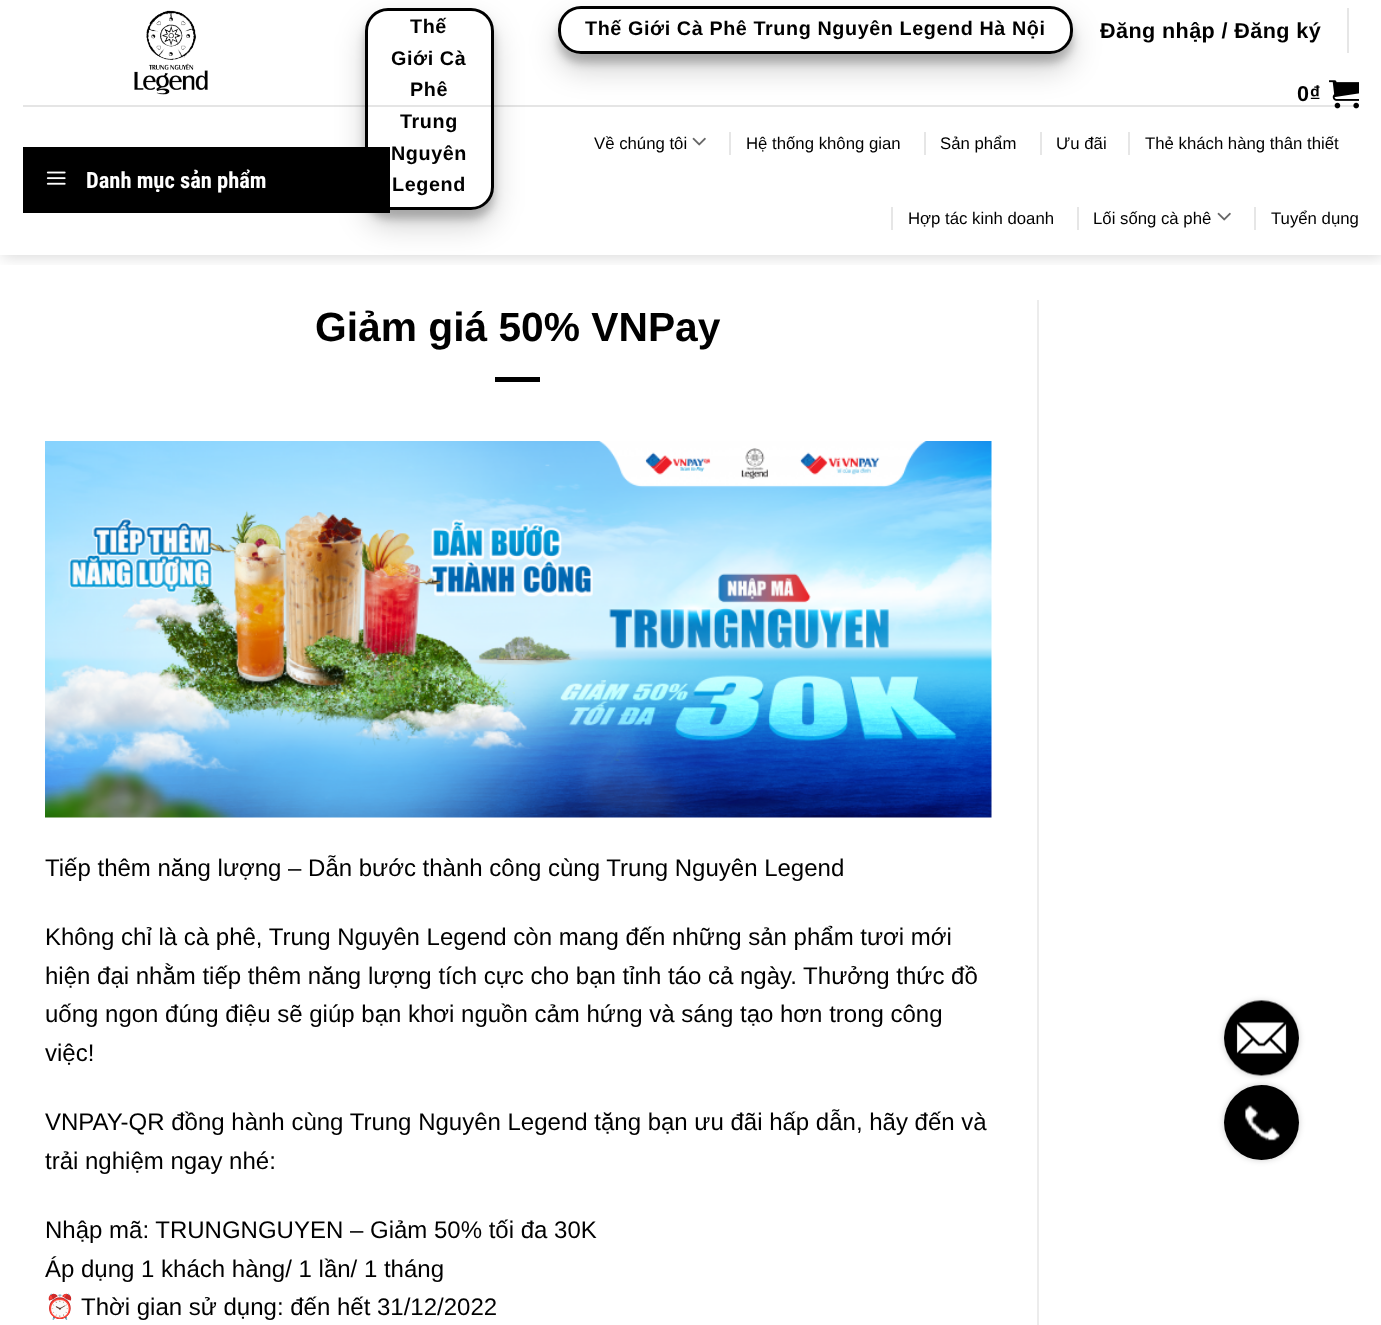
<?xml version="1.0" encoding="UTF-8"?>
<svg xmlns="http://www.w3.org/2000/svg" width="1381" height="1325">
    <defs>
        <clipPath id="clip1"><rect x="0" y="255" width="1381" height="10"/></clipPath>
        <filter id="blur1" x="-50%" y="-200%" width="200%" height="500%"><feGaussianBlur stdDeviation="7.5"/></filter>
        <clipPath id="clip2"><path d="M 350 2 H 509 V 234 H 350 Z M 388 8 H 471 C 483.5 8 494 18.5 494 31 V 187 C 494 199.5 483.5 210 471 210 H 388 C 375.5 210 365 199.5 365 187 V 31 C 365 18.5 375.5 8 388 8 Z" clip-rule="evenodd"/></clipPath>
        <filter id="blur2" x="-50%" y="-200%" width="200%" height="500%"><feGaussianBlur stdDeviation="4.5"/></filter>
        <clipPath id="clip3"><path d="M 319 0 H 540 V 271 H 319 Z M 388 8 H 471 C 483.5 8 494 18.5 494 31 V 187 C 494 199.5 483.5 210 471 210 H 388 C 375.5 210 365 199.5 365 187 V 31 C 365 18.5 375.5 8 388 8 Z" clip-rule="evenodd"/></clipPath>
        <filter id="blur3" x="-50%" y="-200%" width="200%" height="500%"><feGaussianBlur stdDeviation="15"/></filter>
        <clipPath id="clip4"><path d="M 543 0 H 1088 V 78 H 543 Z M 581 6 H 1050 C 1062.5 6 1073 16.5 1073 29 V 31 C 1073 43.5 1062.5 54 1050 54 H 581 C 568.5 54 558 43.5 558 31 V 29 C 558 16.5 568.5 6 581 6 Z" clip-rule="evenodd"/></clipPath>
        <clipPath id="clip5"><path d="M 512 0 H 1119 V 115 H 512 Z M 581 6 H 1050 C 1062.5 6 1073 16.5 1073 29 V 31 C 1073 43.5 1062.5 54 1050 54 H 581 C 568.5 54 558 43.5 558 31 V 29 C 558 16.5 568.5 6 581 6 Z" clip-rule="evenodd"/></clipPath>
        <filter id="blur4" x="-50%" y="-200%" width="200%" height="500%"><feGaussianBlur stdDeviation="3"/></filter>
    </defs>
    <rect width="100%" height="100%" fill="#FFFFFF"/>
    <g clip-path="url(#clip1)">
        <rect x="2" y="2" width="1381" height="255" fill="#000000" fill-opacity="0.15" filter="url(#blur1)"/>
    </g>
    <image x="134" y="10" width="74" height="85" href="img_01.png"/>
    <rect x="23" y="147" width="367" height="66" fill="#000000"/>
    <g clip-path="url(#clip2)">
        <rect x="365" y="17" width="129" height="202" rx="23" fill="#000000" fill-opacity="0.22" filter="url(#blur2)"/>
    </g>
    <g clip-path="url(#clip3)">
        <rect x="365" y="23" width="129" height="202" rx="23" fill="#000000" fill-opacity="0.19" filter="url(#blur3)"/>
    </g>
    <rect x="366.5" y="9.5" width="126" height="199" rx="21.5" fill="none" stroke="#000000" stroke-width="3"/>
    <text x="410" y="33" font-family="Liberation Sans" font-size="19.75" font-weight="700" letter-spacing="0.6" fill="#000000">Thế</text>
    <text x="391" y="65" font-family="Liberation Sans" font-size="19.75" font-weight="700" letter-spacing="0.6" fill="#000000">Giới Cà</text>
    <text x="410" y="96" font-family="Liberation Sans" font-size="19.75" font-weight="700" letter-spacing="0.6" fill="#000000">Phê</text>
    <text x="400" y="128" font-family="Liberation Sans" font-size="19.75" font-weight="700" letter-spacing="0.6" fill="#000000">Trung</text>
    <text x="391" y="160" font-family="Liberation Sans" font-size="19.75" font-weight="700" letter-spacing="0.6" fill="#000000">Nguyên</text>
    <text x="392" y="191" font-family="Liberation Sans" font-size="19.75" font-weight="700" letter-spacing="0.6" fill="#000000">Legend</text>
    <g clip-path="url(#clip4)">
        <rect x="558" y="15" width="515" height="48" rx="23" fill="#000000" fill-opacity="0.22" filter="url(#blur2)"/>
    </g>
    <g clip-path="url(#clip5)">
        <rect x="558" y="21" width="515" height="48" rx="23" fill="#000000" fill-opacity="0.19" filter="url(#blur3)"/>
    </g>
    <rect x="559.5" y="7.5" width="512" height="45" rx="21.5" fill="none" stroke="#000000" stroke-width="3"/>
    <text x="585" y="35" font-family="Liberation Sans" font-size="19.75" font-weight="700" letter-spacing="0.6" fill="#000000">Thế Giới Cà Phê Trung Nguyên Legend Hà Nội</text>
    <text x="1100" y="38" font-family="Liberation Sans" font-size="21.6" font-weight="700" letter-spacing="0.4" fill="#000000">Đăng nhập / Đăng ký</text>
    <rect x="1347" y="8" width="2" height="45" fill="#E6E6E6"/>
    <text x="1297" y="101" font-family="Liberation Sans" font-size="21.6" font-weight="700" letter-spacing="0.4" fill="#000000">0₫</text>
    <image x="1329" y="80" width="30" height="29" href="img_02.png"/>
    <rect x="23" y="105" width="1336" height="2" fill="#000000" fill-opacity="0.1"/>
    <image x="46" y="171" width="20" height="14" href="img_03.png"/>
    <text x="86" y="188" font-family="Roboto Condensed" font-size="22.5" font-weight="700" fill="#FFFFFF">Danh mục sản phẩm</text>
    <text x="594" y="149" font-family="Liberation Sans" font-size="16.75" fill="#000000">Về chúng tôi</text>
    <image x="692" y="137" width="14" height="9" href="img_04.png"/>
    <rect x="729" y="132" width="2" height="23" fill="#E6E6E6"/>
    <text x="746" y="149" font-family="Liberation Sans" font-size="16.75" fill="#000000">Hệ thống không gian</text>
    <rect x="924" y="132" width="2" height="23" fill="#E6E6E6"/>
    <text x="940" y="149" font-family="Liberation Sans" font-size="16.75" fill="#000000">Sản phẩm</text>
    <rect x="1040" y="132" width="2" height="23" fill="#E6E6E6"/>
    <text x="1056" y="149" font-family="Liberation Sans" font-size="16.75" fill="#000000">Ưu đãi</text>
    <rect x="1128" y="132" width="2" height="23" fill="#E6E6E6"/>
    <text x="1145" y="149" font-family="Liberation Sans" font-size="16.75" fill="#000000">Thẻ khách hàng thân thiết</text>
    <rect x="891" y="207" width="2" height="23" fill="#E6E6E6"/>
    <text x="908" y="224" font-family="Liberation Sans" font-size="16.75" fill="#000000">Hợp tác kinh doanh</text>
    <rect x="1077" y="207" width="2" height="23" fill="#E6E6E6"/>
    <text x="1093" y="224" font-family="Liberation Sans" font-size="16.75" fill="#000000">Lối sống cà phê</text>
    <image x="1217" y="212" width="14" height="9" href="img_04.png"/>
    <rect x="1254" y="207" width="2" height="23" fill="#E6E6E6"/>
    <text x="1271" y="224" font-family="Liberation Sans" font-size="16.75" fill="#000000">Tuyển dụng</text>
    <text x="315" y="341" font-family="Liberation Sans" font-size="40.75" font-weight="700" fill="#000000">Giảm giá 50% VNPay</text>
    <rect x="495" y="377" width="45" height="5" fill="#000000"/>
    <image x="45" y="441" width="947" height="377" href="img_05.png"/>
    <text x="45" y="876" font-family="Liberation Sans" font-size="24" fill="#000000">Tiếp thêm năng lượng – Dẫn bước thành công cùng Trung Nguyên Legend</text>
    <text font-family="Liberation Sans" font-size="24" fill="#000000">
        <tspan x="45" y="945">Không chỉ là cà phê, Trung Nguyên Legend còn mang đến những sản phẩm tươi mới</tspan>
        <tspan x="45" y="984">hiện đại nhằm tiếp thêm năng lượng tích cực cho bạn tỉnh táo cả ngày. Thưởng thức đồ</tspan>
        <tspan x="45" y="1022">uống ngon đúng điệu sẽ giúp bạn khơi nguồn cảm hứng và sáng tạo hơn trong công</tspan>
        <tspan x="45" y="1061">việc!</tspan>
    </text>
    <text font-family="Liberation Sans" font-size="24" fill="#000000">
        <tspan x="45" y="1130">VNPAY-QR đồng hành cùng Trung Nguyên Legend tặng bạn ưu đãi hấp dẫn, hãy đến và</tspan>
        <tspan x="45" y="1169">trải nghiệm ngay nhé:</tspan>
    </text>
    <text font-family="Liberation Sans" font-size="24" fill="#000000">
        <tspan x="45" y="1238">Nhập mã: TRUNGNGUYEN – Giảm 50% tối đa 30K</tspan>
        <tspan x="45" y="1277">Áp dụng 1 khách hàng/ 1 lần/ 1 tháng</tspan>
    </text>
    <text x="45" y="1315" font-family="Noto Color Emoji" font-size="24" fill="#000000">⏰</text>
    <text x="81" y="1315" font-family="Liberation Sans" font-size="24" fill="#000000">Thời gian sử dụng: đến hết 31/12/2022</text>
    <rect x="1037" y="300" width="2" height="1025" fill="#ECECEC"/>
    <rect x="1224" y="1085" width="75" height="75" rx="37.5" fill="#000000" fill-opacity="0.2" filter="url(#blur4)"/>
    <circle cx="1261.5" cy="1122.5" r="37.5" fill="#000000"/>
    <rect x="1224" y="1001" width="75" height="75" rx="37.5" fill="#000000" fill-opacity="0.2" filter="url(#blur4)"/>
    <circle cx="1261.5" cy="1038.5" r="37.5" fill="#FFFFFF"/>
    <image x="1224" y="1000" width="75" height="76" href="img_06.png"/>
    <image x="1245" y="1105" width="35" height="36" href="img_07.png"/>
</svg>
